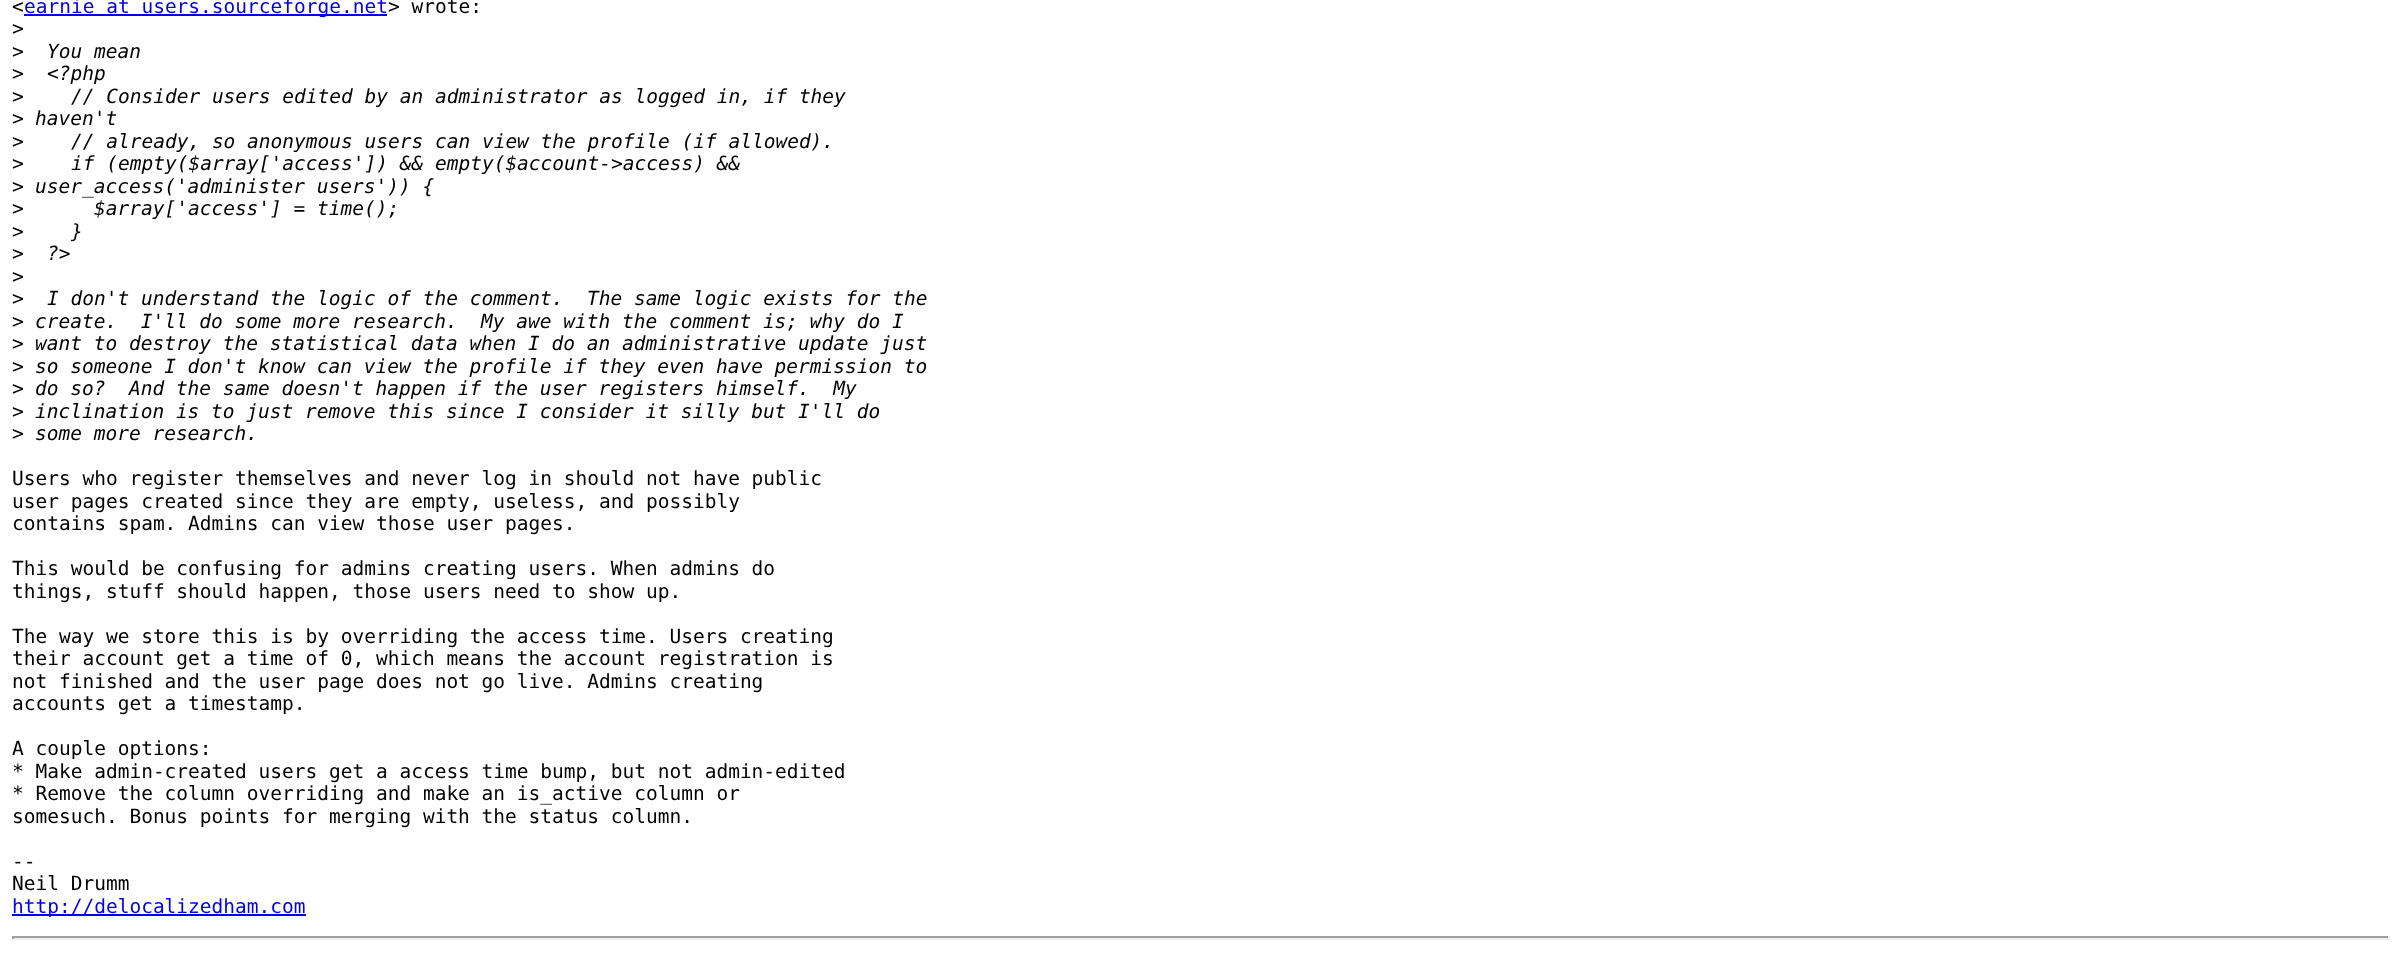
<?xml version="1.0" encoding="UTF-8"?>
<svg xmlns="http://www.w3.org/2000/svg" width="2401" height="970">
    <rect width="100%" height="100%" fill="#FFFFFF"/>
    <text x="12" y="13" font-family="DejaVu Sans Mono" font-size="19.5" fill="#000000">&lt;</text>
    <rect x="24" y="14" width="363" height="2" fill="#0000EE"/>
    <text x="24" y="13" font-family="DejaVu Sans Mono" font-size="19.5" fill="#0000EE">earnie at users.sourceforge.net</text>
    <text x="388" y="13" font-family="DejaVu Sans Mono" font-size="19.5" fill="#000000">&gt; wrote:</text>
    <text font-family="DejaVu Sans Mono" font-size="19.5" fill="#000000">
        <tspan x="12" y="35">&gt;</tspan>
        <tspan x="12" y="58">&gt;</tspan>
    </text>
    <text x="47" y="58" font-family="DejaVu Sans Mono" font-size="19.5" font-style="italic" fill="#000000">You mean</text>
    <text x="12" y="80" font-family="DejaVu Sans Mono" font-size="19.5" fill="#000000">&gt;</text>
    <text x="47" y="80" font-family="DejaVu Sans Mono" font-size="19.5" font-style="italic" fill="#000000">&lt;?php</text>
    <text x="12" y="103" font-family="DejaVu Sans Mono" font-size="19.5" fill="#000000">&gt;</text>
    <text x="71" y="103" font-family="DejaVu Sans Mono" font-size="19.5" font-style="italic" fill="#000000">// Consider users edited by an administrator as logged in, if they</text>
    <text x="12" y="125" font-family="DejaVu Sans Mono" font-size="19.5" fill="#000000">&gt;</text>
    <text x="35" y="125" font-family="DejaVu Sans Mono" font-size="19.5" font-style="italic" fill="#000000">haven't</text>
    <text x="12" y="148" font-family="DejaVu Sans Mono" font-size="19.5" fill="#000000">&gt;</text>
    <text x="71" y="148" font-family="DejaVu Sans Mono" font-size="19.5" font-style="italic" fill="#000000">// already, so anonymous users can view the profile (if allowed).</text>
    <text x="12" y="170" font-family="DejaVu Sans Mono" font-size="19.5" fill="#000000">&gt;</text>
    <text x="71" y="170" font-family="DejaVu Sans Mono" font-size="19.5" font-style="italic" fill="#000000">if (empty($array['access']) &amp;&amp; empty($account-&gt;access) &amp;&amp;</text>
    <text x="12" y="193" font-family="DejaVu Sans Mono" font-size="19.5" fill="#000000">&gt;</text>
    <text x="35" y="193" font-family="DejaVu Sans Mono" font-size="19.5" font-style="italic" fill="#000000">user_access('administer users')) {</text>
    <text x="12" y="215" font-family="DejaVu Sans Mono" font-size="19.5" fill="#000000">&gt;</text>
    <text x="94" y="215" font-family="DejaVu Sans Mono" font-size="19.5" font-style="italic" fill="#000000">$array['access'] = time();</text>
    <text x="12" y="238" font-family="DejaVu Sans Mono" font-size="19.5" fill="#000000">&gt;</text>
    <text x="71" y="238" font-family="DejaVu Sans Mono" font-size="19.5" font-style="italic" fill="#000000">}</text>
    <text x="12" y="260" font-family="DejaVu Sans Mono" font-size="19.5" fill="#000000">&gt;</text>
    <text x="47" y="260" font-family="DejaVu Sans Mono" font-size="19.5" font-style="italic" fill="#000000">?&gt;</text>
    <text font-family="DejaVu Sans Mono" font-size="19.5" fill="#000000">
        <tspan x="12" y="283">&gt;</tspan>
        <tspan x="12" y="305">&gt;</tspan>
    </text>
    <text x="47" y="305" font-family="DejaVu Sans Mono" font-size="19.5" font-style="italic" fill="#000000" xml:space="preserve">I don't understand the logic of the comment.  The same logic exists for the</text>
    <text x="12" y="328" font-family="DejaVu Sans Mono" font-size="19.5" fill="#000000">&gt;</text>
    <text x="35" y="328" font-family="DejaVu Sans Mono" font-size="19.5" font-style="italic" fill="#000000" xml:space="preserve">create.  I'll do some more research.  My awe with the comment is; why do I</text>
    <text x="12" y="350" font-family="DejaVu Sans Mono" font-size="19.5" fill="#000000">&gt;</text>
    <text x="35" y="350" font-family="DejaVu Sans Mono" font-size="19.5" font-style="italic" fill="#000000">want to destroy the statistical data when I do an administrative update just</text>
    <text x="12" y="373" font-family="DejaVu Sans Mono" font-size="19.5" fill="#000000">&gt;</text>
    <text x="35" y="373" font-family="DejaVu Sans Mono" font-size="19.5" font-style="italic" fill="#000000">so someone I don't know can view the profile if they even have permission to</text>
    <text x="12" y="395" font-family="DejaVu Sans Mono" font-size="19.5" fill="#000000">&gt;</text>
    <text x="35" y="395" font-family="DejaVu Sans Mono" font-size="19.5" font-style="italic" fill="#000000" xml:space="preserve">do so?  And the same doesn't happen if the user registers himself.  My</text>
    <text x="12" y="418" font-family="DejaVu Sans Mono" font-size="19.5" fill="#000000">&gt;</text>
    <text x="35" y="418" font-family="DejaVu Sans Mono" font-size="19.5" font-style="italic" fill="#000000">inclination is to just remove this since I consider it silly but I'll do</text>
    <text x="12" y="440" font-family="DejaVu Sans Mono" font-size="19.5" fill="#000000">&gt;</text>
    <text x="35" y="440" font-family="DejaVu Sans Mono" font-size="19.5" font-style="italic" fill="#000000">some more research.</text>
    <text font-family="DejaVu Sans Mono" font-size="19.5" fill="#000000">
        <tspan x="12" y="485">Users who register themselves and never log in should not have public</tspan>
        <tspan x="12" y="508">user pages created since they are empty, useless, and possibly</tspan>
        <tspan x="12" y="530">contains spam. Admins can view those user pages.</tspan>
    </text>
    <text font-family="DejaVu Sans Mono" font-size="19.5" fill="#000000">
        <tspan x="12" y="575">This would be confusing for admins creating users. When admins do</tspan>
        <tspan x="12" y="598">things, stuff should happen, those users need to show up.</tspan>
    </text>
    <text font-family="DejaVu Sans Mono" font-size="19.5" fill="#000000">
        <tspan x="12" y="643">The way we store this is by overriding the access time. Users creating</tspan>
        <tspan x="12" y="665">their account get a time of 0, which means the account registration is</tspan>
        <tspan x="12" y="688">not finished and the user page does not go live. Admins creating</tspan>
        <tspan x="12" y="710">accounts get a timestamp.</tspan>
    </text>
    <text font-family="DejaVu Sans Mono" font-size="19.5" fill="#000000">
        <tspan x="12" y="755">A couple options:</tspan>
        <tspan x="12" y="778">* Make admin-created users get a access time bump, but not admin-edited</tspan>
        <tspan x="12" y="800">* Remove the column overriding and make an is_active column or</tspan>
        <tspan x="12" y="823">somesuch. Bonus points for merging with the status column.</tspan>
    </text>
    <text font-family="DejaVu Sans Mono" font-size="19.5" fill="#000000">
        <tspan x="12" y="868">--</tspan>
        <tspan x="12" y="890">Neil Drumm</tspan>
    </text>
    <rect x="12" y="914" width="294" height="2" fill="#0000EE"/>
    <text x="12" y="913" font-family="DejaVu Sans Mono" font-size="19.5" fill="#0000EE">http://delocalizedham.com</text>
    <rect x="12" y="936" width="2378" height="2" fill="#9F9F9F"/>
    <rect x="2388" y="936" width="2" height="3" fill="#EEEEEE"/>
    <rect x="12" y="938" width="2378" height="2" fill="#EEEEEE"/>
    <rect x="12" y="936" width="2" height="3" fill="#9F9F9F"/>
</svg>
